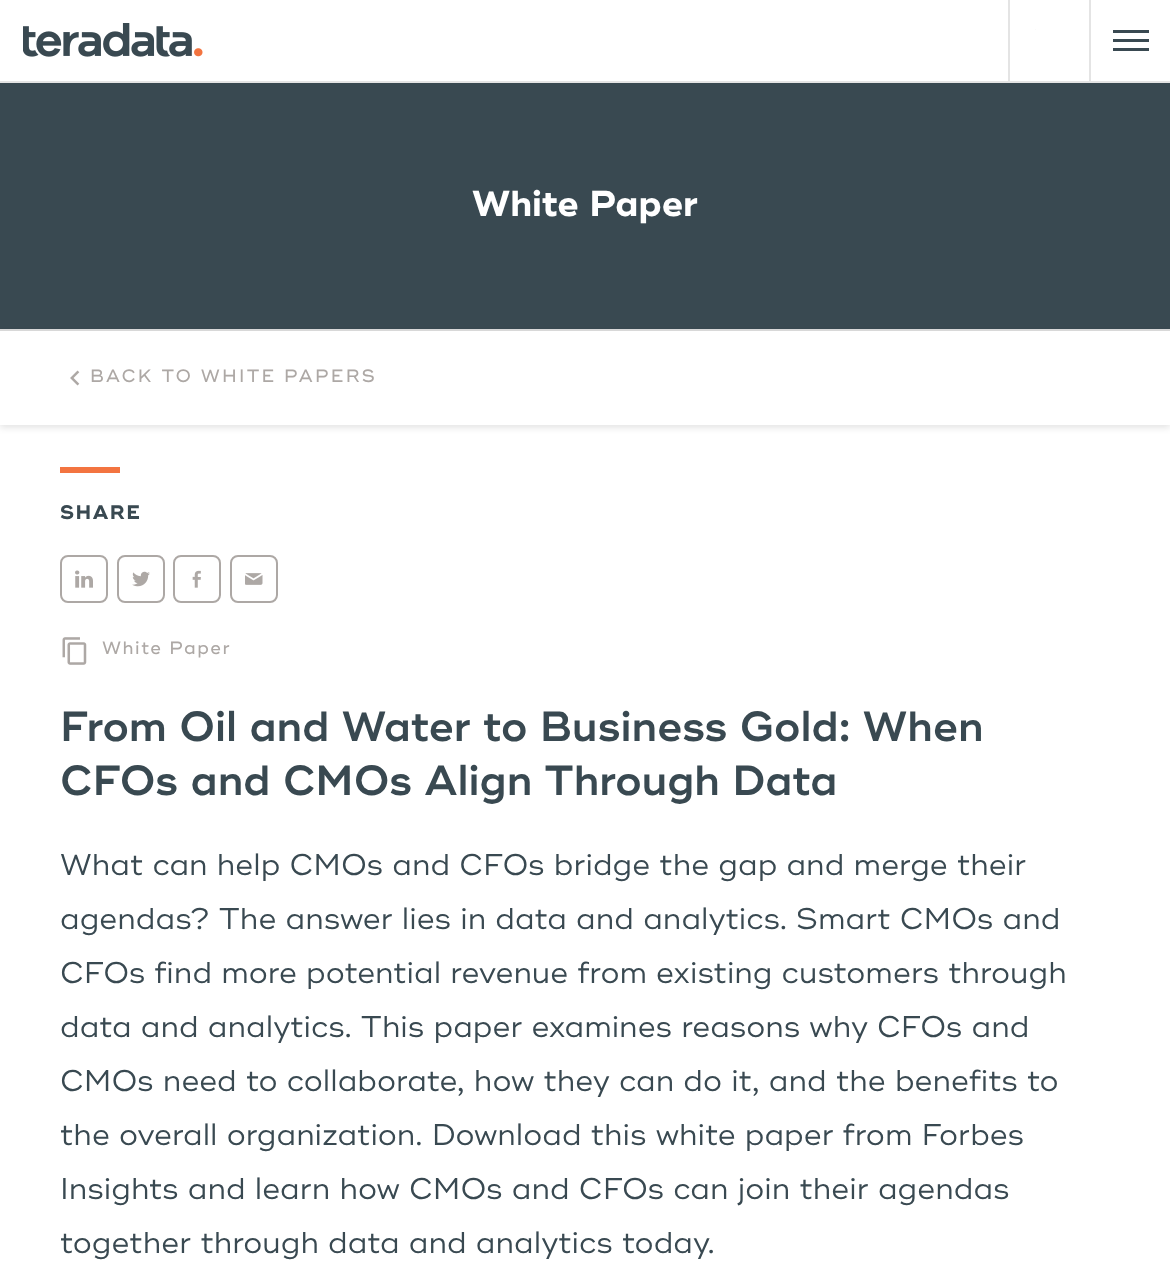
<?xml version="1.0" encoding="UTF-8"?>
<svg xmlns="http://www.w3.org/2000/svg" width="1170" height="1264">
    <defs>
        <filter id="blur1" x="-50%" y="-200%" width="200%" height="500%"><feGaussianBlur stdDeviation="3"/></filter>
    </defs>
    <rect width="100%" height="100%" fill="#FFFFFF"/>
    <rect x="0" y="81" width="1170" height="2" fill="#E4E4E4"/>
    <image x="23" y="23" width="180" height="34" href="img_01.png"/>
    <rect x="1008" y="0" width="2" height="81" fill="#E4E4E4"/>
    <rect x="1035" y="29" width="1" height="1" fill="#FAFAFA"/>
    <rect x="1089" y="0" width="2" height="81" fill="#E4E4E4"/>
    <rect x="1113" y="30" width="36" height="3" fill="#394951"/>
    <rect x="1113" y="39" width="36" height="3" fill="#394951"/>
    <rect x="1113" y="48" width="36" height="3" fill="#394951"/>
    <rect x="0" y="83" width="1170" height="246" fill="#394951"/>
    <text x="472" y="216" font-family="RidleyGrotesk" font-size="36" fill="#FFFFFF">White Paper</text>
    <rect x="0" y="332" width="1170" height="96" fill="#000000" fill-opacity="0.1" filter="url(#blur1)"/>
    <rect x="0" y="331" width="1170" height="94" fill="#FFFFFF"/>
    <rect x="0" y="329" width="1170" height="2" fill="#D8D8D8"/>
    <image x="70" y="370" width="10" height="16" href="img_02.png"/>
    <text x="90" y="382" font-family="'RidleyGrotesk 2'" font-size="18" letter-spacing="2.25" fill="#ADA8A5">BACK TO WHITE PAPERS</text>
    <rect x="60" y="467" width="60" height="6" fill="#F37440"/>
    <text x="60" y="519" font-family="RidleyGrotesk" font-size="19.5" letter-spacing="1.5" fill="#394951">SHARE</text>
    <rect x="61" y="556" width="46" height="46" rx="7" fill="none" stroke="#ADA8A5" stroke-width="2"/>
    <image x="75" y="570" width="18" height="18" href="img_03.png"/>
    <rect x="118" y="556" width="46" height="46" rx="7" fill="none" stroke="#ADA8A5" stroke-width="2"/>
    <image x="132" y="571" width="18" height="16" href="img_04.png"/>
    <rect x="174" y="556" width="46" height="46" rx="7" fill="none" stroke="#ADA8A5" stroke-width="2"/>
    <image x="192" y="570" width="9" height="18" href="img_05.png"/>
    <rect x="231" y="556" width="46" height="46" rx="7" fill="none" stroke="#ADA8A5" stroke-width="2"/>
    <image x="245" y="573" width="18" height="12" href="img_06.png"/>
    <image x="62" y="637" width="25" height="28" href="img_07.png"/>
    <text x="102" y="654" font-family="'RidleyGrotesk 2'" font-size="18" letter-spacing="1.5" fill="#ADA8A5">White Paper</text>
    <text font-family="'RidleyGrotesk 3'" font-size="42" fill="#394951">
        <tspan x="60" y="741">From Oil and Water to Business Gold: When</tspan>
        <tspan x="60" y="795">CFOs and CMOs Align Through Data</tspan>
    </text>
    <text font-family="'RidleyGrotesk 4'" font-size="30" fill="#394951">
        <tspan x="60" y="875">What can help CMOs and CFOs bridge the gap and merge their</tspan>
        <tspan x="60" y="929">agendas? The answer lies in data and analytics. Smart CMOs and</tspan>
        <tspan x="60" y="983">CFOs find more potential revenue from existing customers through</tspan>
        <tspan x="60" y="1037">data and analytics. This paper examines reasons why CFOs and</tspan>
        <tspan x="60" y="1091">CMOs need to collaborate, how they can do it, and the benefits to</tspan>
        <tspan x="60" y="1145">the overall organization. Download this white paper from Forbes</tspan>
        <tspan x="60" y="1199">Insights and learn how CMOs and CFOs can join their agendas</tspan>
        <tspan x="60" y="1253">together through data and analytics today.</tspan>
    </text>
</svg>
